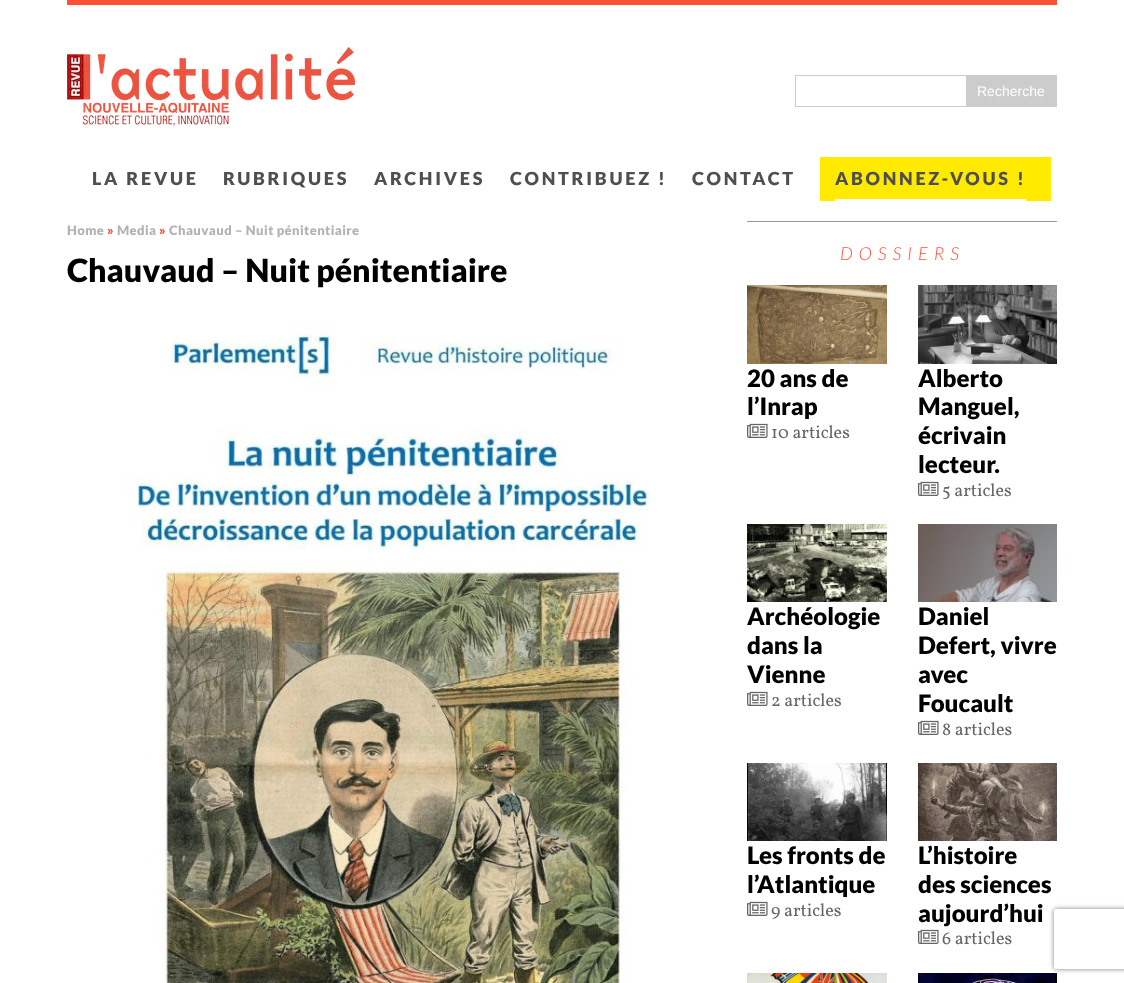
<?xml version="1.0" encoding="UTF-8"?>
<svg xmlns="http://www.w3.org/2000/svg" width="1124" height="983">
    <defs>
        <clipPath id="clip1"><path d="M 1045 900 H 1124 V 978 H 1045 Z M 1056 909 H 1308 C 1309 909 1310 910 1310 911 V 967 C 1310 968 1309 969 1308 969 H 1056 C 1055 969 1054 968 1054 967 V 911 C 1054 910 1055 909 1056 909 Z" clip-rule="evenodd"/></clipPath>
        <filter id="blur1" x="-50%" y="-200%" width="200%" height="500%"><feGaussianBlur stdDeviation="2.5"/></filter>
    </defs>
    <rect width="100%" height="100%" fill="#FFFFFF"/>
    <rect x="67" y="0" width="990" height="5" fill="#FF4F37"/>
    <image x="67" y="47" width="288" height="79" href="img_01.png"/>
    <rect x="795.5" y="75.5" width="261" height="31" fill="none" stroke="#CCCCCC"/>
    <rect x="966" y="76" width="90" height="30" fill="#CCCCCC"/>
    <text x="977" y="96" font-family="Liberation Sans" font-size="14" fill="#FFFFFF">Recherche</text>
    <text x="92" y="185" font-family="Lato" font-size="18" font-weight="900" letter-spacing="2.75" fill="#4F4F4F">LA REVUE</text>
    <text x="223" y="185" font-family="Lato" font-size="18" font-weight="900" letter-spacing="2.75" fill="#4F4F4F">RUBRIQUES</text>
    <text x="374" y="185" font-family="Lato" font-size="18" font-weight="900" letter-spacing="2.75" fill="#4F4F4F">ARCHIVES</text>
    <text x="510" y="185" font-family="Lato" font-size="18" font-weight="900" letter-spacing="2.75" fill="#4F4F4F">CONTRIBUEZ !</text>
    <text x="692" y="185" font-family="Lato" font-size="18" font-weight="900" letter-spacing="2.75" fill="#4F4F4F">CONTACT</text>
    <rect x="820" y="157" width="231" height="44" fill="#FFEA00"/>
    <rect x="835" y="199" width="191" height="2" fill="#FFFFFF"/>
    <text x="835" y="185" font-family="Lato" font-size="18" font-weight="900" letter-spacing="2.75" fill="#4F4F4F">ABONNEZ-VOUS !</text>
    <text x="67" y="235" font-family="Lato" font-size="13" font-weight="900" letter-spacing="0.4" fill="#B3B3B3">Home</text>
    <text x="107" y="235" font-family="Lato" font-size="13" font-weight="900" letter-spacing="0.4" fill="#FF4F37">»</text>
    <text x="117" y="235" font-family="Lato" font-size="13" font-weight="900" letter-spacing="0.4" fill="#B3B3B3">Media</text>
    <text x="159" y="235" font-family="Lato" font-size="13" font-weight="900" letter-spacing="0.4" fill="#FF4F37">»</text>
    <text x="169" y="235" font-family="Lato" font-size="13" font-weight="900" letter-spacing="0.4" fill="#B3B3B3">Chauvaud – Nuit pénitentiaire</text>
    <text x="67" y="282" font-family="Lato" font-size="32" font-weight="900" fill="#000000">Chauvaud – Nuit pénitentiaire</text>
    <image x="127" y="327" width="523" height="656" href="img_02.png"/>
    <rect x="747" y="221" width="310" height="1" fill="#999999"/>
    <text x="840" y="260" font-family="Lato" font-size="18" font-weight="300" font-style="italic" letter-spacing="6" fill="#FF4F37">DOSSIERS</text>
    <image x="747" y="285" width="140" height="79" href="img_03.png"/>
    <text font-family="Lato" font-size="24" font-weight="900" fill="#000000">
        <tspan x="747" y="387">20 ans de</tspan>
        <tspan x="747" y="415">l’Inrap</tspan>
    </text>
    <image x="747" y="423" width="21" height="15" href="img_04.png"/>
    <text x="771" y="438" font-family="Vollkorn" font-size="18" fill="#666666">10 articles</text>
    <image x="918" y="285" width="139" height="79" href="img_05.png"/>
    <text font-family="Lato" font-size="24" font-weight="900" fill="#000000">
        <tspan x="918" y="387">Alberto</tspan>
        <tspan x="918" y="415">Manguel,</tspan>
        <tspan x="918" y="444">écrivain</tspan>
        <tspan x="918" y="473">lecteur.</tspan>
    </text>
    <image x="918" y="481" width="21" height="15" href="img_04.png"/>
    <text x="942" y="496" font-family="Vollkorn" font-size="18" fill="#666666">5 articles</text>
    <image x="747" y="524" width="140" height="78" href="img_06.png"/>
    <text font-family="Lato" font-size="24" font-weight="900" fill="#000000">
        <tspan x="747" y="625">Archéologie</tspan>
        <tspan x="747" y="654">dans la</tspan>
        <tspan x="747" y="683">Vienne</tspan>
    </text>
    <image x="747" y="691" width="21" height="15" href="img_04.png"/>
    <text x="771" y="706" font-family="Vollkorn" font-size="18" fill="#666666">2 articles</text>
    <image x="918" y="524" width="139" height="78" href="img_07.png"/>
    <text font-family="Lato" font-size="24" font-weight="900" fill="#000000">
        <tspan x="918" y="625">Daniel</tspan>
        <tspan x="918" y="654">Defert, vivre</tspan>
        <tspan x="918" y="683">avec</tspan>
        <tspan x="918" y="712">Foucault</tspan>
    </text>
    <image x="918" y="720" width="21" height="15" href="img_04.png"/>
    <text x="942" y="735" font-family="Vollkorn" font-size="18" fill="#666666">8 articles</text>
    <image x="747" y="763" width="140" height="78" href="img_08.png"/>
    <text font-family="Lato" font-size="24" font-weight="900" fill="#000000">
        <tspan x="747" y="864">Les fronts de</tspan>
        <tspan x="747" y="893">l’Atlantique</tspan>
    </text>
    <image x="747" y="901" width="21" height="15" href="img_04.png"/>
    <text x="771" y="916" font-family="Vollkorn" font-size="18" fill="#666666">9 articles</text>
    <image x="918" y="763" width="139" height="78" href="img_09.png"/>
    <text font-family="Lato" font-size="24" font-weight="900" fill="#000000">
        <tspan x="918" y="864">L’histoire</tspan>
        <tspan x="918" y="893">des sciences</tspan>
        <tspan x="918" y="922">aujourd’hui</tspan>
    </text>
    <image x="918" y="929" width="21" height="15" href="img_04.png"/>
    <text x="942" y="944" font-family="Vollkorn" font-size="18" fill="#666666">6 articles</text>
    <image x="747" y="973" width="140" height="10" href="img_10.png"/>
    <image x="918" y="973" width="139" height="10" href="img_11.png"/>
    <g clip-path="url(#clip1)">
        <rect x="1054" y="909" width="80" height="60" rx="2" fill="#808080" filter="url(#blur1)"/>
    </g>
</svg>
